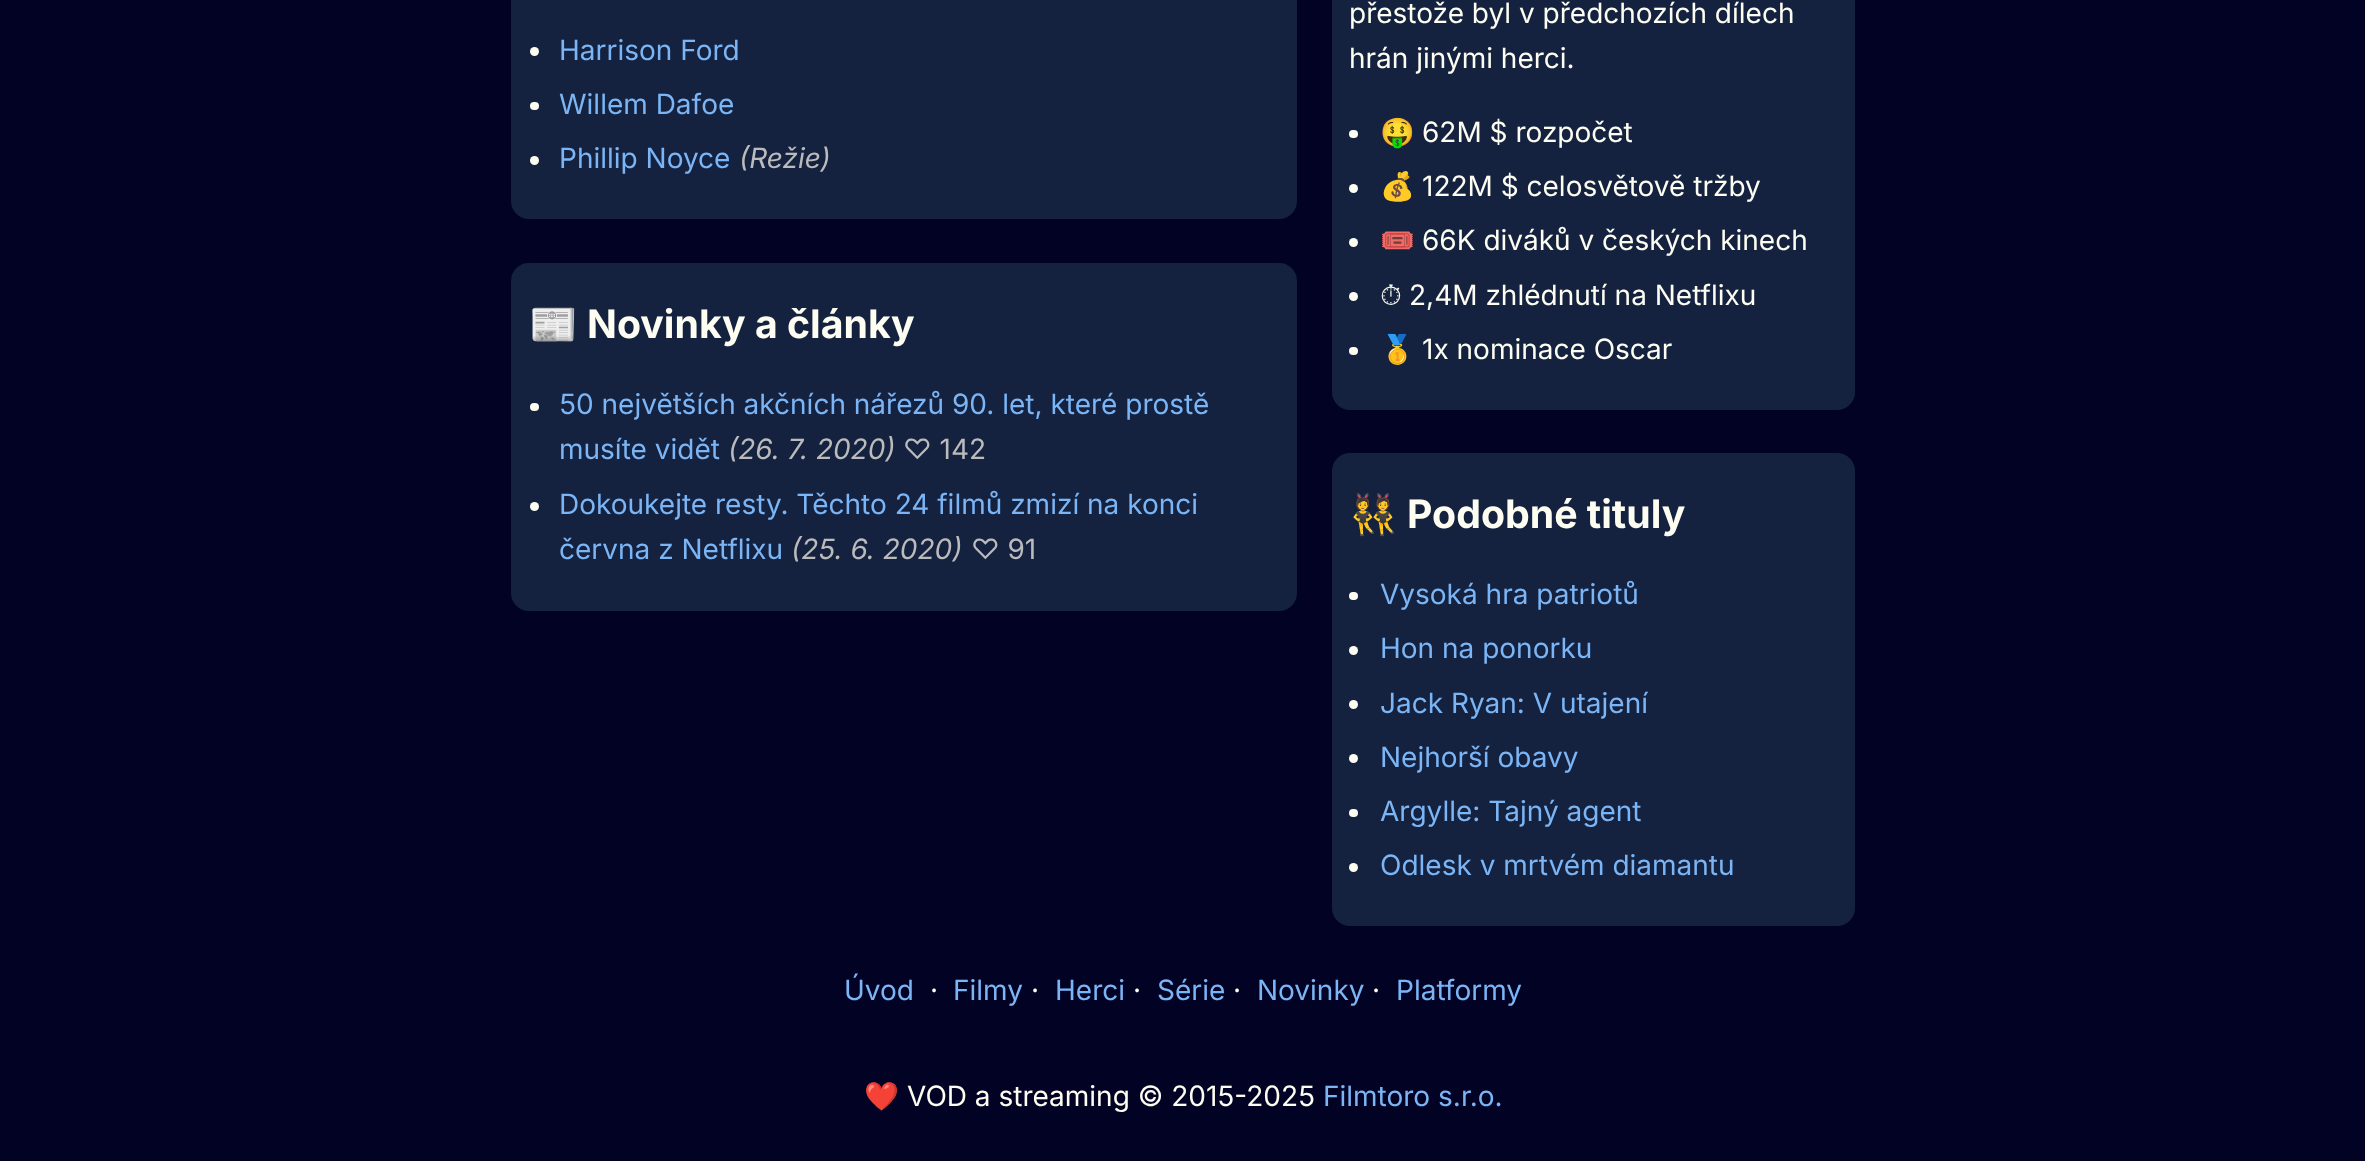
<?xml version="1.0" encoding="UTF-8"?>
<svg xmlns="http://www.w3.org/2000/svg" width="2365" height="1161">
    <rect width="100%" height="100%" fill="#020324"/>
    <rect x="511" y="-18" width="786" height="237" rx="18" fill="#142240"/>
    <circle cx="534.5" cy="51.5" r="4.5" fill="#FDFDF1"/>
    <text x="559" y="60" font-family="Inter" font-size="28" fill="#7BB5F5">Harrison Ford</text>
    <rect x="530" y="102" width="9" height="8" rx="4" fill="#FDFDF1"/>
    <text x="559" y="114" font-family="Inter" font-size="28" fill="#7BB5F5">Willem Dafoe</text>
    <circle cx="534.5" cy="160.5" r="4.5" fill="#FDFDF1"/>
    <text x="559" y="168" font-family="Inter" font-size="28" fill="#7BB5F5">Phillip Noyce</text>
    <text x="739" y="168" font-family="Inter" font-size="28" font-style="italic" fill="#BBBBBB">(Režie)</text>
    <rect x="511" y="263" width="786" height="348" rx="18" fill="#142240"/>
    <text x="529" y="338" font-family="Noto Color Emoji" font-size="39.25" font-weight="700" fill="#FDFDF1">📰</text>
    <text x="587" y="338" font-family="Inter" font-size="39.25" font-weight="700" fill="#FDFDF1">Novinky a články</text>
    <rect x="530" y="403" width="9" height="8" rx="4" fill="#FDFDF1"/>
    <text font-family="Inter" font-size="28" fill="#7BB5F5">
        <tspan x="559" y="414">50 největších akčních nářezů 90. let, které prostě</tspan>
        <tspan x="559" y="459">musíte vidět</tspan>
    </text>
    <text x="728" y="459" font-family="Inter" font-size="28" font-style="italic" fill="#BBBBBB">(26. 7. 2020)</text>
    <text x="903" y="459" font-family="Inter" font-size="28" fill="#BBBBBB">♡ 142</text>
    <circle cx="534.5" cy="506.5" r="4.5" fill="#FDFDF1"/>
    <text font-family="Inter" font-size="28" fill="#7BB5F5">
        <tspan x="559" y="514">Dokoukejte resty. Těchto 24 filmů zmizí na konci</tspan>
        <tspan x="559" y="559">června z Netflixu</tspan>
    </text>
    <text x="791" y="559" font-family="Inter" font-size="28" font-style="italic" fill="#BBBBBB">(25. 6. 2020)</text>
    <text x="971" y="559" font-family="Inter" font-size="28" fill="#BBBBBB">♡ 91</text>
    <rect x="1332" y="-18" width="523" height="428" rx="18" fill="#142240"/>
    <text font-family="Inter" font-size="28" fill="#FDFDF1">
        <tspan x="1349" y="23">přestože byl v předchozích dílech</tspan>
        <tspan x="1349" y="68">hrán jinými herci.</tspan>
    </text>
    <rect x="1349" y="130" width="9" height="8" rx="4" fill="#FDFDF1"/>
    <text x="1380" y="142" font-family="Noto Color Emoji" font-size="28" fill="#FDFDF1">🤑</text>
    <text x="1422" y="142" font-family="Inter" font-size="28" fill="#FDFDF1">62M $ rozpočet</text>
    <circle cx="1353.5" cy="188.5" r="4.5" fill="#FDFDF1"/>
    <text x="1380" y="196" font-family="Noto Color Emoji" font-size="28" fill="#FDFDF1">💰</text>
    <text x="1422" y="196" font-family="Inter" font-size="28" fill="#FDFDF1">122M $ celosvětově tržby</text>
    <circle cx="1353.5" cy="242.5" r="4.5" fill="#FDFDF1"/>
    <text x="1380" y="250" font-family="Noto Color Emoji" font-size="28" fill="#FDFDF1">🎟️</text>
    <text x="1422" y="250" font-family="Inter" font-size="28" fill="#FDFDF1">66K diváků v českých kinech</text>
    <circle cx="1353.5" cy="296.5" r="4.5" fill="#FDFDF1"/>
    <text x="1380" y="305" font-family="FreeSerif" font-size="28" fill="#FDFDF1">⏱</text>
    <text x="1409" y="305" font-family="Inter" font-size="28" fill="#FDFDF1">2,4M zhlédnutí na Netflixu</text>
    <rect x="1349" y="347" width="9" height="8" rx="4" fill="#FDFDF1"/>
    <text x="1380" y="359" font-family="Noto Color Emoji" font-size="28" fill="#FDFDF1">🥇</text>
    <text x="1422" y="359" font-family="Inter" font-size="28" fill="#FDFDF1">1x nominace Oscar</text>
    <rect x="1332" y="453" width="523" height="473" rx="18" fill="#142240"/>
    <text x="1349" y="528" font-family="Noto Color Emoji" font-size="39.25" font-weight="700" fill="#FDFDF1">👯</text>
    <text x="1407" y="528" font-family="Inter" font-size="39.25" font-weight="700" fill="#FDFDF1">Podobné tituly</text>
    <rect x="1349" y="592" width="9" height="8" rx="4" fill="#FDFDF1"/>
    <text x="1380" y="604" font-family="Inter" font-size="28" fill="#7BB5F5">Vysoká hra patriotů</text>
    <circle cx="1353.5" cy="650.5" r="4.5" fill="#FDFDF1"/>
    <text x="1380" y="658" font-family="Inter" font-size="28" fill="#7BB5F5">Hon na ponorku</text>
    <circle cx="1353.5" cy="704.5" r="4.5" fill="#FDFDF1"/>
    <text x="1380" y="713" font-family="Inter" font-size="28" fill="#7BB5F5">Jack Ryan: V utajení</text>
    <circle cx="1353.5" cy="758.5" r="4.5" fill="#FDFDF1"/>
    <text x="1380" y="767" font-family="Inter" font-size="28" fill="#7BB5F5">Nejhorší obavy</text>
    <rect x="1349" y="809" width="9" height="8" rx="4" fill="#FDFDF1"/>
    <text x="1380" y="821" font-family="Inter" font-size="28" fill="#7BB5F5">Argylle: Tajný agent</text>
    <circle cx="1353.5" cy="867.5" r="4.5" fill="#FDFDF1"/>
    <text x="1380" y="875" font-family="Inter" font-size="28" fill="#7BB5F5">Odlesk v mrtvém diamantu</text>
    <text x="844" y="1000" font-family="Inter" font-size="28" fill="#7BB5F5">Úvod</text>
    <text x="930" y="1000" font-family="Inter" font-size="28" fill="#FDFDF1">·</text>
    <text x="953" y="1000" font-family="Inter" font-size="28" fill="#7BB5F5">Filmy</text>
    <text x="1031" y="1000" font-family="Inter" font-size="28" fill="#FDFDF1">·</text>
    <text x="1055" y="1000" font-family="Inter" font-size="28" fill="#7BB5F5">Herci</text>
    <text x="1133" y="1000" font-family="Inter" font-size="28" fill="#FDFDF1">·</text>
    <text x="1157" y="1000" font-family="Inter" font-size="28" fill="#7BB5F5">Série</text>
    <text x="1233" y="1000" font-family="Inter" font-size="28" fill="#FDFDF1">·</text>
    <text x="1257" y="1000" font-family="Inter" font-size="28" fill="#7BB5F5">Novinky</text>
    <text x="1372" y="1000" font-family="Inter" font-size="28" fill="#FDFDF1">·</text>
    <text x="1396" y="1000" font-family="Inter" font-size="28" fill="#7BB5F5">Platformy</text>
    <text x="864" y="1106" font-family="Noto Color Emoji" font-size="28" fill="#FDFDF1">❤️</text>
    <text x="907" y="1106" font-family="Inter" font-size="28" fill="#FDFDF1">VOD a streaming © 2015-2025</text>
    <text x="1323" y="1106" font-family="Inter" font-size="28" fill="#7BB5F5">Filmtoro s.r.o.</text>
</svg>
